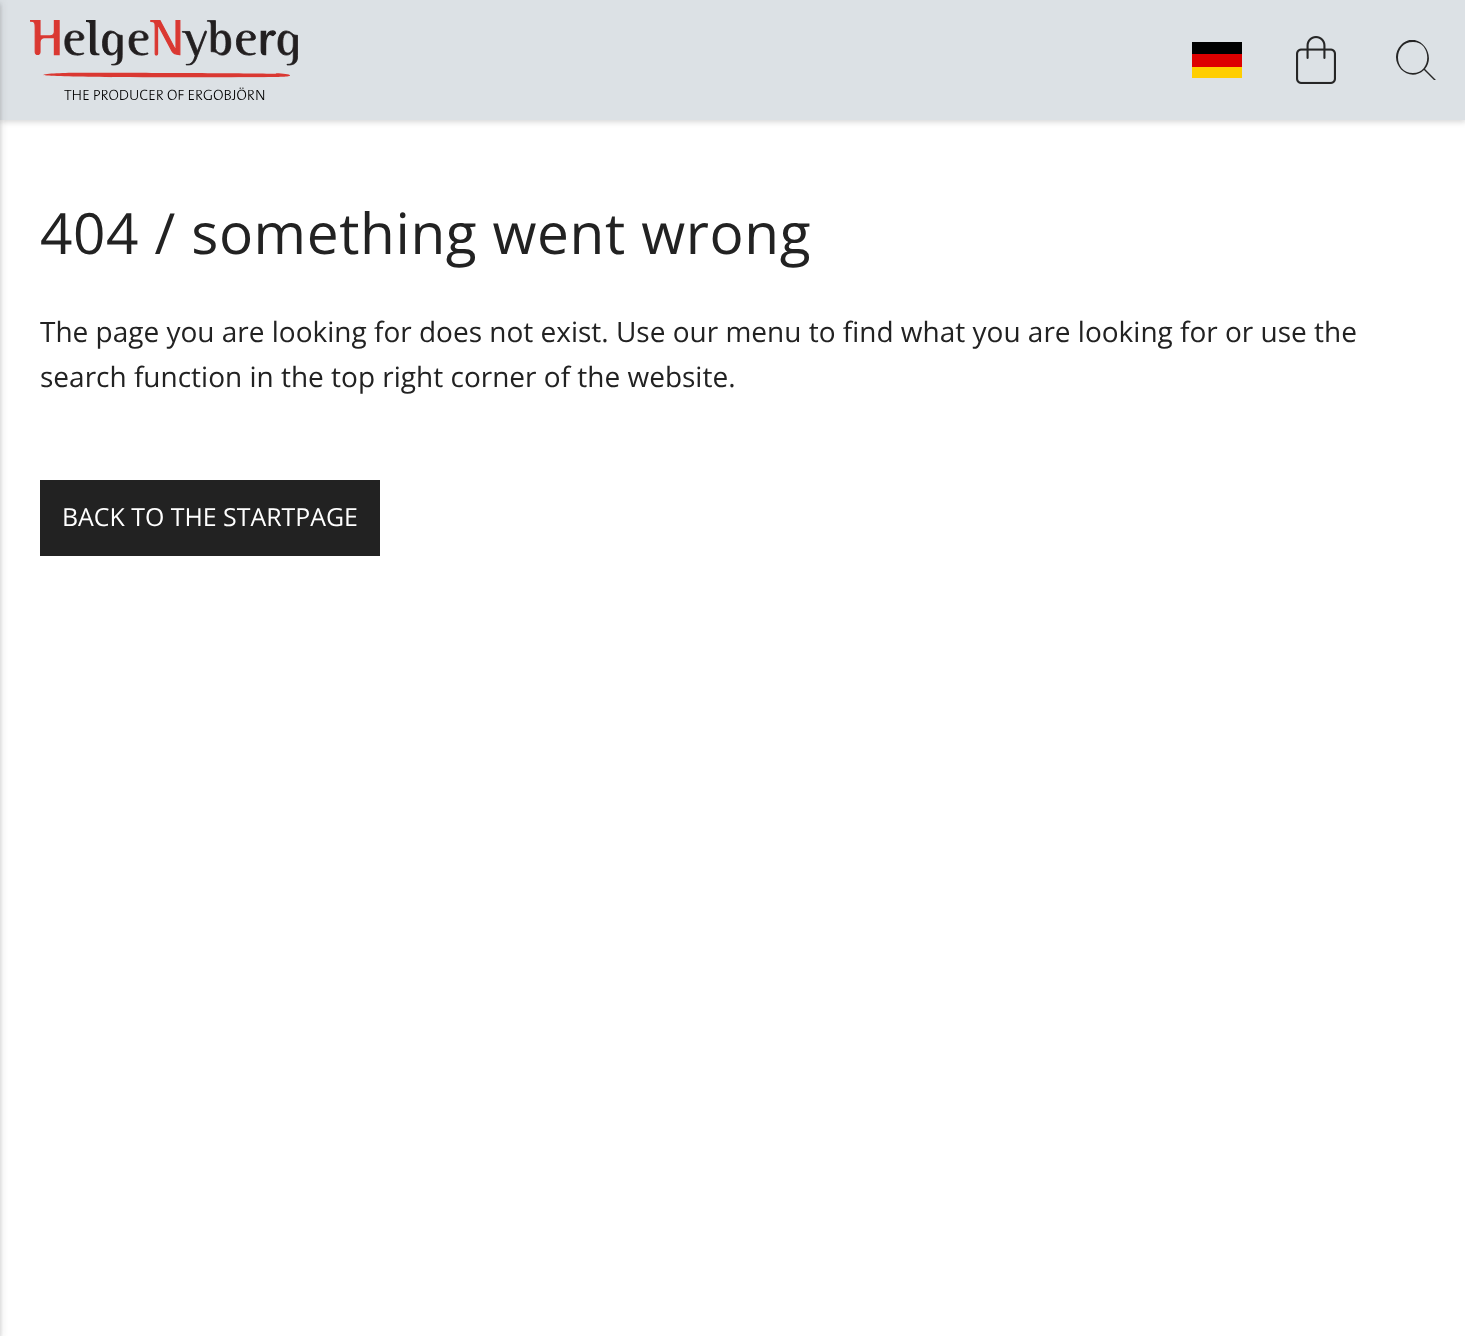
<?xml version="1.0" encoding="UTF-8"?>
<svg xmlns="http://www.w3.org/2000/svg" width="1465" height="1336">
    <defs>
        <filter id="blur1" x="-50%" y="-200%" width="200%" height="500%"><feGaussianBlur stdDeviation="2"/></filter>
        <filter id="blur2" x="-50%" y="-200%" width="200%" height="500%"><feGaussianBlur stdDeviation="3"/></filter>
        <filter id="blur3" x="-50%" y="-200%" width="200%" height="500%"><feGaussianBlur stdDeviation="5"/></filter>
        <clipPath id="clip1"><rect x="1396" y="40" width="40" height="40"/></clipPath>
    </defs>
    <rect width="100%" height="100%" fill="#FFFFFF"/>
    <rect x="0" y="2" width="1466" height="120" fill="#000000" fill-opacity="0.06" filter="url(#blur1)"/>
    <rect x="0" y="2" width="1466" height="120" fill="#000000" fill-opacity="0.1" filter="url(#blur2)"/>
    <rect x="0" y="0" width="1465" height="120" fill="#DCE1E5"/>
    <rect x="-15" y="2" width="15" height="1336" fill="#000000" fill-opacity="0.12" filter="url(#blur3)"/>
    <rect x="-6" y="4" width="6" height="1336" fill="#000000" fill-opacity="0.14" filter="url(#blur1)"/>
    <rect x="1192" y="67" width="50" height="11" fill="#FFCE00"/>
    <rect x="1192" y="42" width="50" height="12" fill="#000000"/>
    <rect x="1192" y="54" width="50" height="13" fill="#DD0000"/>
    <image x="1296" y="36" width="40" height="48" href="img_01.png"/>
    <g clip-path="url(#clip1)">
        <path d="M 1424 70 L 1435 81 C 1435 82 1436 81 1436 80 L 1425 69 C 1438 53 1416 29 1401 45 C 1386 61 1408 85 1424 70 Z M 1413 42 C 1432 42 1432 73 1413 73 C 1393 73 1393 42 1413 42 Z" fill="#262626" fill-rule="evenodd"/>
    </g>
    <image x="30" y="20" width="268" height="80" href="img_02.png"/>
    <text x="40" y="254" font-family="Open Sans" font-size="56.75" letter-spacing="0.6" fill="#222222">404 / something went wrong</text>
    <text font-family="Open Sans" font-size="28" fill="#222222">
        <tspan x="40" y="342">The page you are looking for does not exist. Use our menu to find what you are looking for or use the</tspan>
        <tspan x="40" y="387">search function in the top right corner of the website.</tspan>
    </text>
    <rect x="40" y="480" width="340" height="76" fill="#222222"/>
    <text x="62" y="526" font-family="Open Sans" font-size="24.9" fill="#FFFFFF">BACK TO THE STARTPAGE</text>
</svg>
